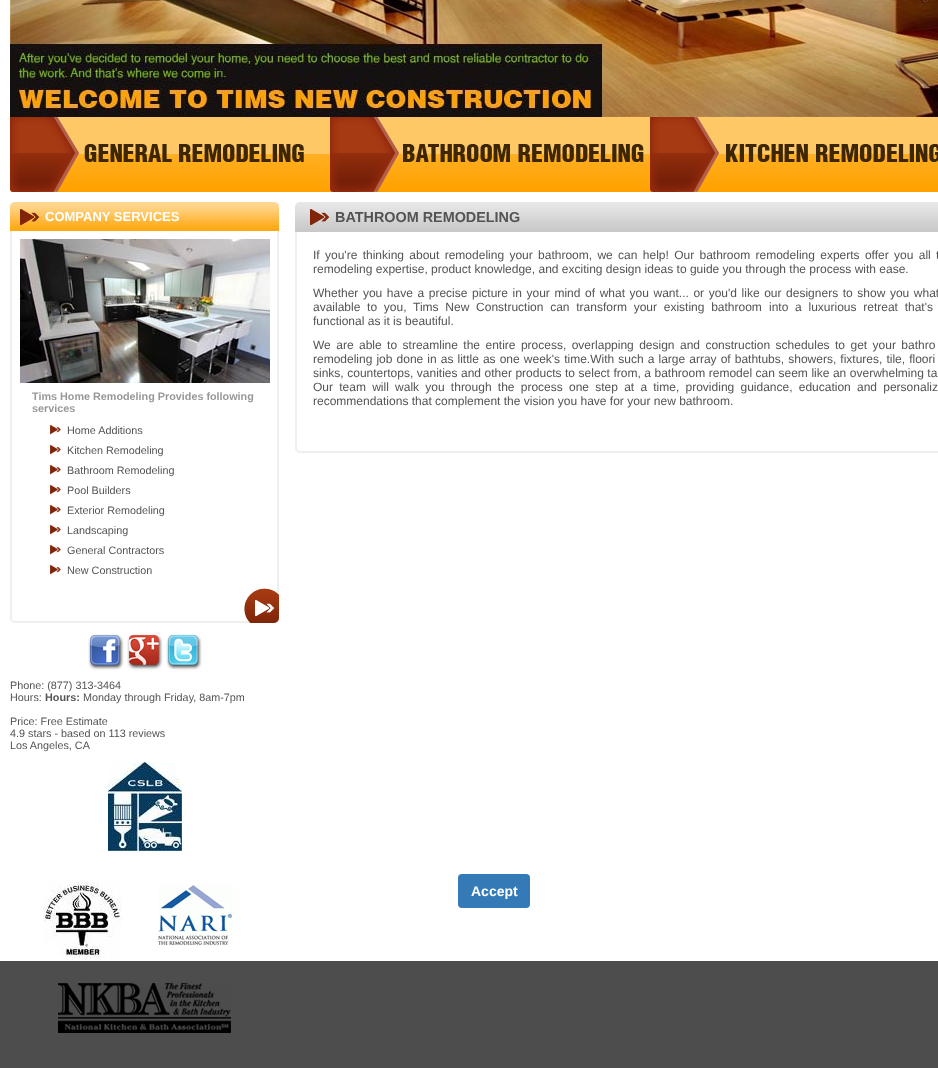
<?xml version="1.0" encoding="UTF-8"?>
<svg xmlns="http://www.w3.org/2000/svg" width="938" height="1068">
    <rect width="100%" height="100%" fill="#FFFFFF"/>
    <rect x="0" y="961" width="938" height="107" fill="#4D4D4D"/>
    <image x="10" y="0" width="928" height="117" href="img_01.png"/>
    <image x="10" y="117" width="320" height="75" href="img_02.png"/>
    <image x="330" y="117" width="320" height="75" href="img_03.png"/>
    <image x="650" y="117" width="288" height="75" href="img_04.png"/>
    <image x="10" y="202" width="269" height="29" href="img_05.png"/>
    <text x="45" y="221" font-family="Liberation Sans" font-size="13" font-weight="700" fill="#FFFFFF">COMPANY SERVICES</text>
    <rect x="277" y="231" width="2" height="357" fill="#EFEFEF"/>
    <rect x="10" y="231" width="2" height="357" fill="#EFEFEF"/>
    <image x="20" y="239" width="250" height="144" href="img_06.png"/>
    <text font-family="Liberation Sans" font-size="10.8" font-weight="700" fill="#989898">
        <tspan x="32" y="400">Tims Home Remodeling Provides following</tspan>
        <tspan x="32" y="412">services</tspan>
    </text>
    <image x="50" y="425" width="11" height="10" href="img_07.png"/>
    <text x="67" y="434" font-family="Liberation Sans" font-size="10.8" fill="#535353">Home Additions</text>
    <image x="50" y="445" width="11" height="10" href="img_07.png"/>
    <text x="67" y="454" font-family="Liberation Sans" font-size="10.8" fill="#535353">Kitchen Remodeling</text>
    <image x="50" y="465" width="11" height="10" href="img_07.png"/>
    <text x="67" y="474" font-family="Liberation Sans" font-size="10.8" fill="#535353">Bathroom Remodeling</text>
    <image x="50" y="485" width="11" height="10" href="img_07.png"/>
    <text x="67" y="494" font-family="Liberation Sans" font-size="10.8" fill="#535353">Pool Builders</text>
    <image x="50" y="505" width="11" height="10" href="img_07.png"/>
    <text x="67" y="514" font-family="Liberation Sans" font-size="10.8" fill="#535353">Exterior Remodeling</text>
    <image x="50" y="525" width="11" height="10" href="img_07.png"/>
    <text x="67" y="534" font-family="Liberation Sans" font-size="10.8" fill="#535353">Landscaping</text>
    <image x="50" y="545" width="11" height="10" href="img_07.png"/>
    <text x="67" y="554" font-family="Liberation Sans" font-size="10.8" fill="#535353">General Contractors</text>
    <image x="50" y="565" width="11" height="10" href="img_07.png"/>
    <text x="67" y="574" font-family="Liberation Sans" font-size="10.8" fill="#535353">New Construction</text>
    <image x="10" y="588" width="269" height="35" href="img_08.png"/>
    <image x="88" y="634" width="36" height="36" href="img_09.png"/>
    <image x="127" y="634" width="36" height="36" href="img_10.png"/>
    <image x="166" y="634" width="36" height="36" href="img_11.png"/>
    <text font-family="Liberation Sans" font-size="10.8" fill="#535353">
        <tspan x="10" y="689">Phone: (877) 313-3464</tspan>
        <tspan x="10" y="701">Hours:</tspan>
    </text>
    <text x="45" y="701" font-family="Liberation Sans" font-size="10.8" font-weight="700" fill="#535353">Hours:</text>
    <text x="83" y="701" font-family="Liberation Sans" font-size="10.8" fill="#535353">Monday through Friday, 8am-7pm</text>
    <text font-family="Liberation Sans" font-size="10.8" fill="#535353">
        <tspan x="10" y="725">Price: Free Estimate</tspan>
        <tspan x="10" y="737">4.9 stars - based on 113 reviews</tspan>
        <tspan x="10" y="749">Los Angeles, CA</tspan>
    </text>
    <image x="108" y="762" width="74" height="89" href="img_12.png"/>
    <image x="43" y="882" width="79" height="76" href="img_13.png"/>
    <image x="158" y="885" width="75" height="61" href="img_14.png"/>
    <image x="58" y="983" width="173" height="50" href="img_15.png"/>
    <image x="295" y="202" width="643" height="30" href="img_16.png"/>
    <text x="335" y="222" font-family="Liberation Sans" font-size="14.4" font-weight="700" fill="#535353">BATHROOM REMODELING</text>
    <rect x="295" y="232" width="2" height="186" fill="#EFEFEF"/>
    <text font-family="Liberation Sans" font-size="12" fill="#535353">
        <tspan x="313" y="259" word-spacing="2">If you're thinking about remodeling your bathroom, we can help! Our bathroom remodeling experts offer you all t</tspan>
        <tspan x="313" y="273">remodeling expertise, product knowledge, and exciting design ideas to guide you through the process with ease.</tspan>
    </text>
    <text font-family="Liberation Sans" font-size="12" fill="#535353">
        <tspan x="313" y="297" word-spacing="1.25">Whether you have a precise picture in your mind of what you want... or you'd like our designers to show you what</tspan>
        <tspan x="313" y="311" word-spacing="3.4">available to you, Tims New Construction can transform your existing bathroom</tspan>
    </text>
    <text x="769" y="311" word-spacing="3.4" font-family="Liberation Sans" font-size="12" fill="#535353">into a luxurious retreat that's</text>
    <text x="313" y="325" font-family="Liberation Sans" font-size="12" fill="#535353">functional as it is beautiful.</text>
    <text font-family="Liberation Sans" font-size="12" fill="#535353">
        <tspan x="313" y="349" word-spacing="2.1">We are able to streamline the entire process, overlapping design and construction schedules to get your bathro</tspan>
        <tspan x="313" y="363" word-spacing="0.75">remodeling job done in as little as one week's time.With such a large array of bathtubs, showers, fixtures, tile, floori</tspan>
        <tspan x="313" y="377" word-spacing="0.2">sinks, countertops, vanities and other products to select from, a bathroom remodel can seem like an overwhelming ta</tspan>
        <tspan x="313" y="391" word-spacing="2.9">Our team will walk you through the process one step at a time, providing guidance, education and personaliz</tspan>
        <tspan x="313" y="405">recommendations that complement the vision you have for your new bathroom.</tspan>
    </text>
    <image x="295" y="418" width="643" height="35" href="img_17.png"/>
    <rect x="458" y="874" width="72" height="34" rx="4" fill="#337AB7"/>
    <text x="471" y="896" font-family="Liberation Sans" font-size="14" font-weight="700" fill="#FFFFFF">Accept</text>
</svg>
